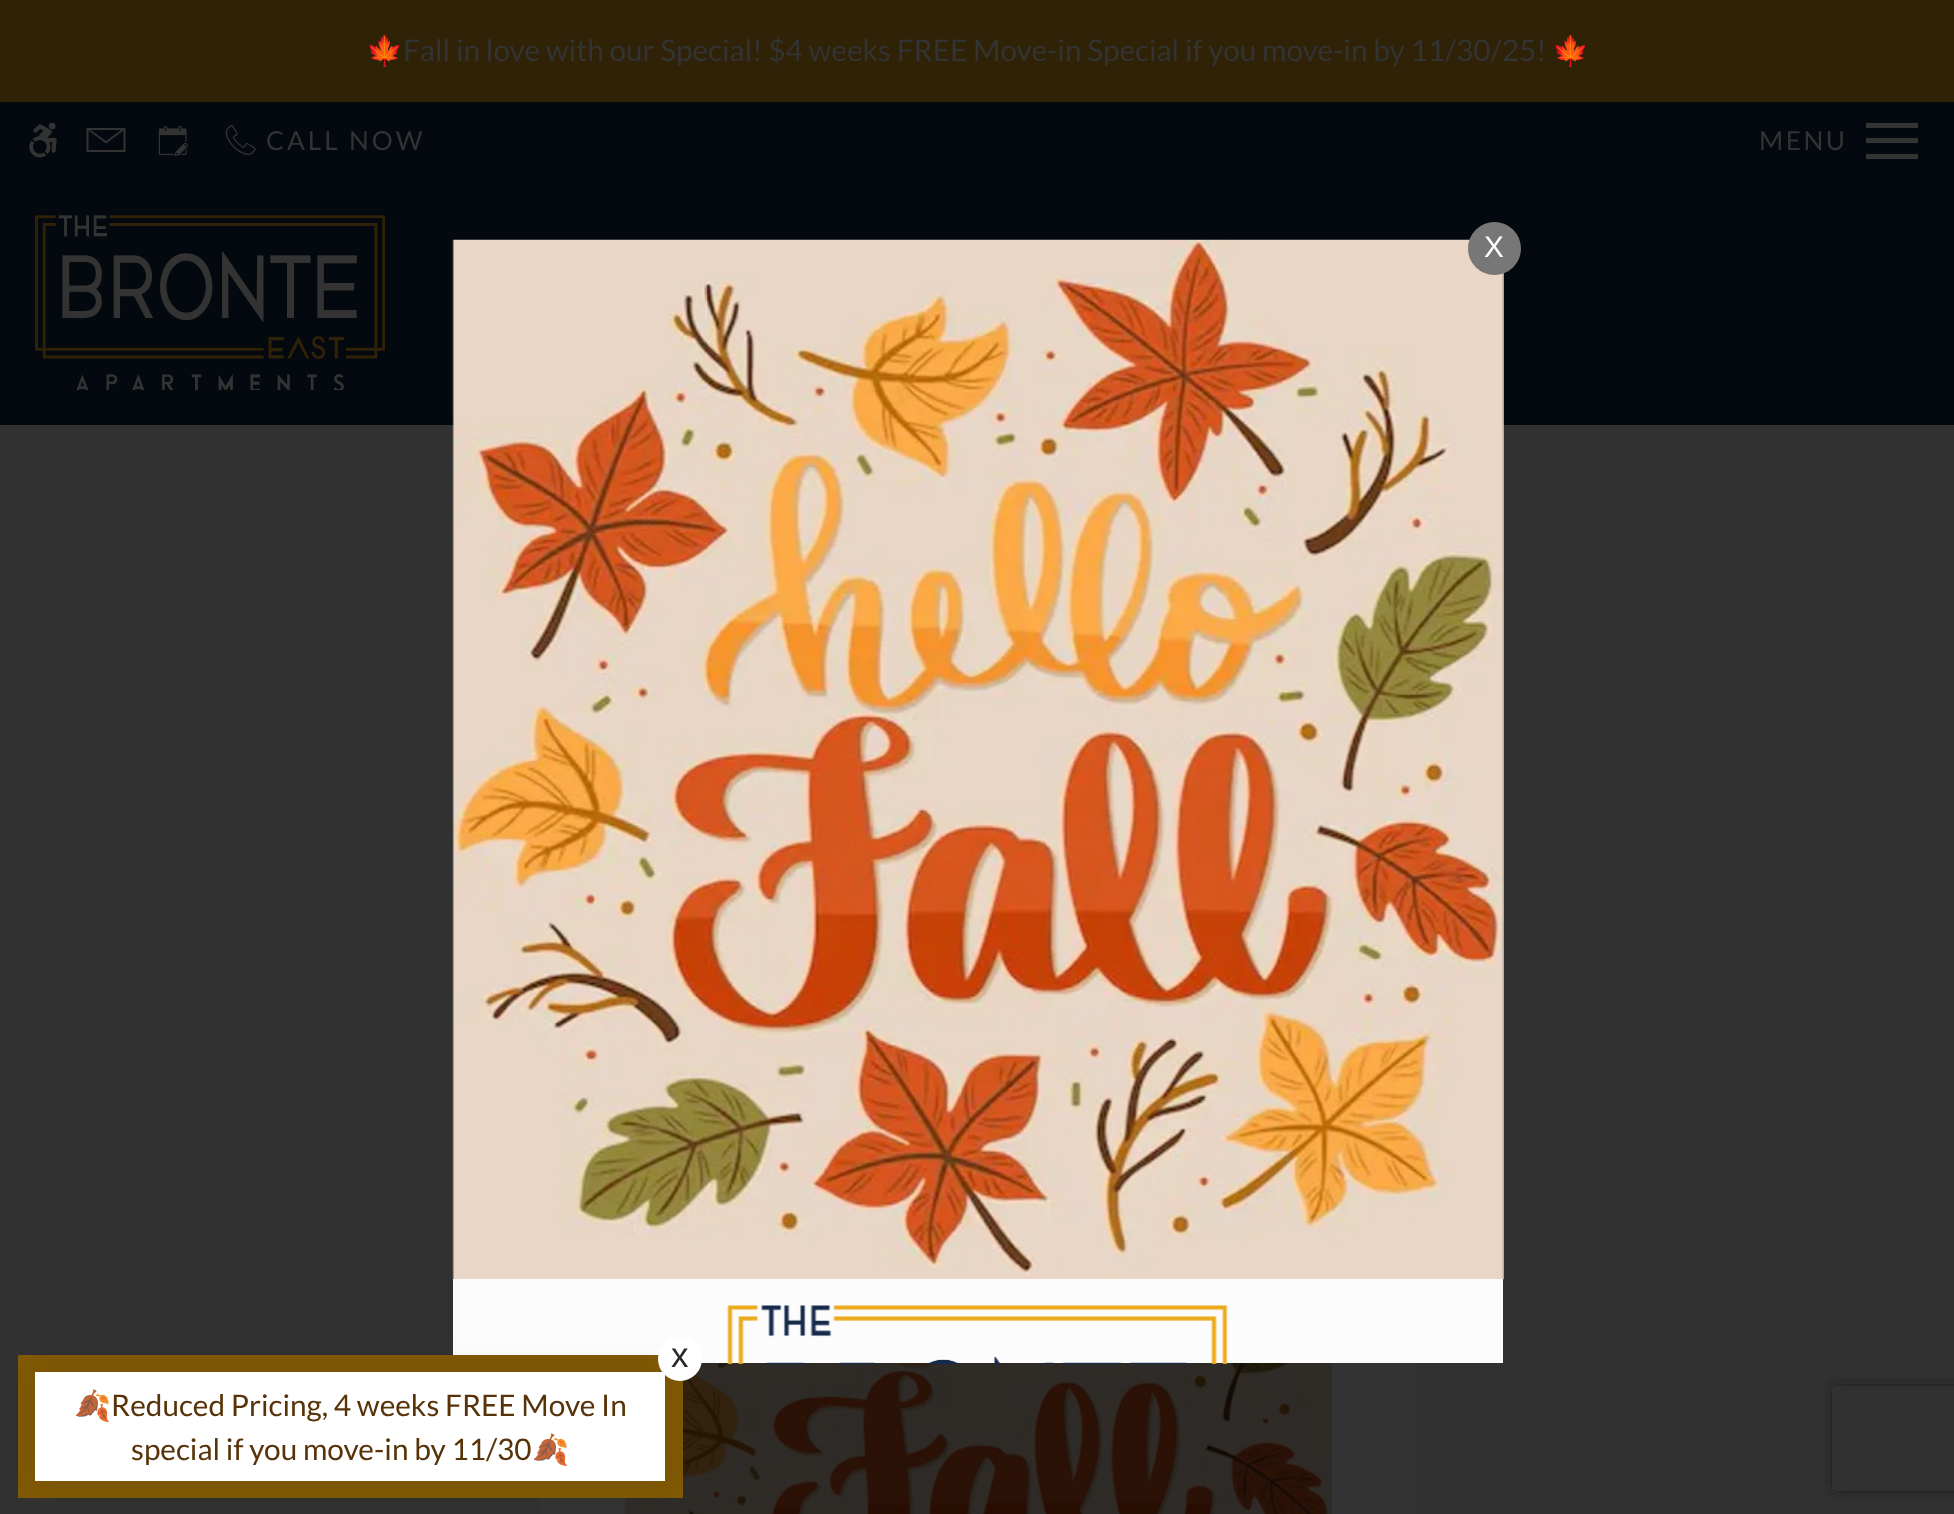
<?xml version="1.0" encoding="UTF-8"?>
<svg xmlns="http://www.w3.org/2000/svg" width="1954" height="1514">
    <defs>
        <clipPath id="clip1"><rect x="86" y="128" width="40" height="24"/></clipPath>
        <clipPath id="clip2"><rect x="18" y="1355" width="665" height="143"/></clipPath>
        <filter id="blur1" x="-50%" y="-200%" width="200%" height="500%"><feGaussianBlur stdDeviation="16"/></filter>
        <clipPath id="clip3"><path d="M 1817 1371 H 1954 V 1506 H 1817 Z M 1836 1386 H 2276 C 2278 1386 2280 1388 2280 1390 V 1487 C 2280 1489 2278 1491 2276 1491 H 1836 C 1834 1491 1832 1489 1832 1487 V 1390 C 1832 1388 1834 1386 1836 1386 Z" clip-rule="evenodd"/></clipPath>
        <filter id="blur2" x="-50%" y="-200%" width="200%" height="500%"><feGaussianBlur stdDeviation="4.5"/></filter>
    </defs>
    <rect width="100%" height="100%" fill="#303130"/>
    <rect x="0" y="0" width="1954" height="102" fill="#2F2206"/>
    <text x="366" y="61" font-family="Noto Color Emoji" font-size="29.75" fill="#333333">🍁</text>
    <text x="403" y="61" font-family="Lato" font-size="29.75" fill="#333333">Fall in love with our Special! $4 weeks FREE Move-in Special if you move-in by 11/30/25!</text>
    <text x="1552" y="61" font-family="Noto Color Emoji" font-size="29.75" fill="#333333">🍁</text>
    <rect x="0" y="102" width="1954" height="323" fill="#04080F"/>
    <image x="35" y="215" width="350" height="175" href="img_01.png"/>
    <image x="29" y="123" width="28" height="35" href="img_02.png"/>
    <g clip-path="url(#clip1)">
        <path d="M 123.5 130.5 V 150 H 88.5 V 130.5 L 106 143.5 Z M 90.5 130 H 121 L 106 141 Z M 86.5 152.5 H 125.5 V 128 H 86.5 Z" fill="#333333"/>
    </g>
    <image x="158" y="126" width="30" height="30" href="img_03.png"/>
    <image x="225" y="125" width="31" height="30" href="img_04.png"/>
    <text x="266" y="150" font-family="Lato" font-size="26.25" letter-spacing="3" fill="#333333">CALL NOW</text>
    <text x="1759" y="150" font-family="Lato" font-size="26.25" letter-spacing="2.5" fill="#333333">MENU</text>
    <rect x="1866" y="123" width="52" height="5" fill="#333333"/>
    <rect x="1866" y="138" width="52" height="5" fill="#333333"/>
    <rect x="1866" y="154" width="52" height="5" fill="#333333"/>
    <rect x="541" y="1363" width="875" height="151" fill="#333333"/>
    <image x="624" y="1363" width="708" height="151" href="img_05.png"/>
    <image x="452" y="239" width="1052" height="1041" href="img_06.png"/>
    <circle cx="1494.5" cy="248.5" r="26.5" fill="#777777"/>
    <text x="1484" y="257" font-family="Liberation Sans" font-size="29.75" fill="#FFFFFF">X</text>
    <rect x="453" y="1279" width="1050" height="84" fill="#FCFCFC"/>
    <image x="727" y="1305" width="501" height="59" href="img_07.png"/>
    <g clip-path="url(#clip2)">
        <circle cx="350" cy="1426" r="525" fill="#815904"/>
    </g>
    <rect x="35" y="1372" width="630" height="109" fill="#000000" fill-opacity="0.1" filter="url(#blur1)"/>
    <rect x="35" y="1372" width="630" height="109" fill="#FFFFFF"/>
    <circle cx="680" cy="1359" r="22" fill="#FFFFFF"/>
    <text x="671" y="1367" font-family="Liberation Sans" font-size="35" fill="#292929">x</text>
    <text x="74" y="1416" font-family="Noto Color Emoji" font-size="29.75" fill="#583309">🍂</text>
    <text x="111" y="1416" font-family="Lato" font-size="29.75" fill="#583309">Reduced Pricing, 4 weeks FREE Move In</text>
    <text x="131" y="1460" font-family="Lato" font-size="29.75" fill="#583309">special if you move-in by 11/30</text>
    <text x="532" y="1460" font-family="Noto Color Emoji" font-size="29.75" fill="#583309">🍂</text>
    <g clip-path="url(#clip3)">
        <rect x="1832" y="1386" width="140" height="105" rx="4" fill="#1A1A1A" filter="url(#blur2)"/>
    </g>
</svg>
